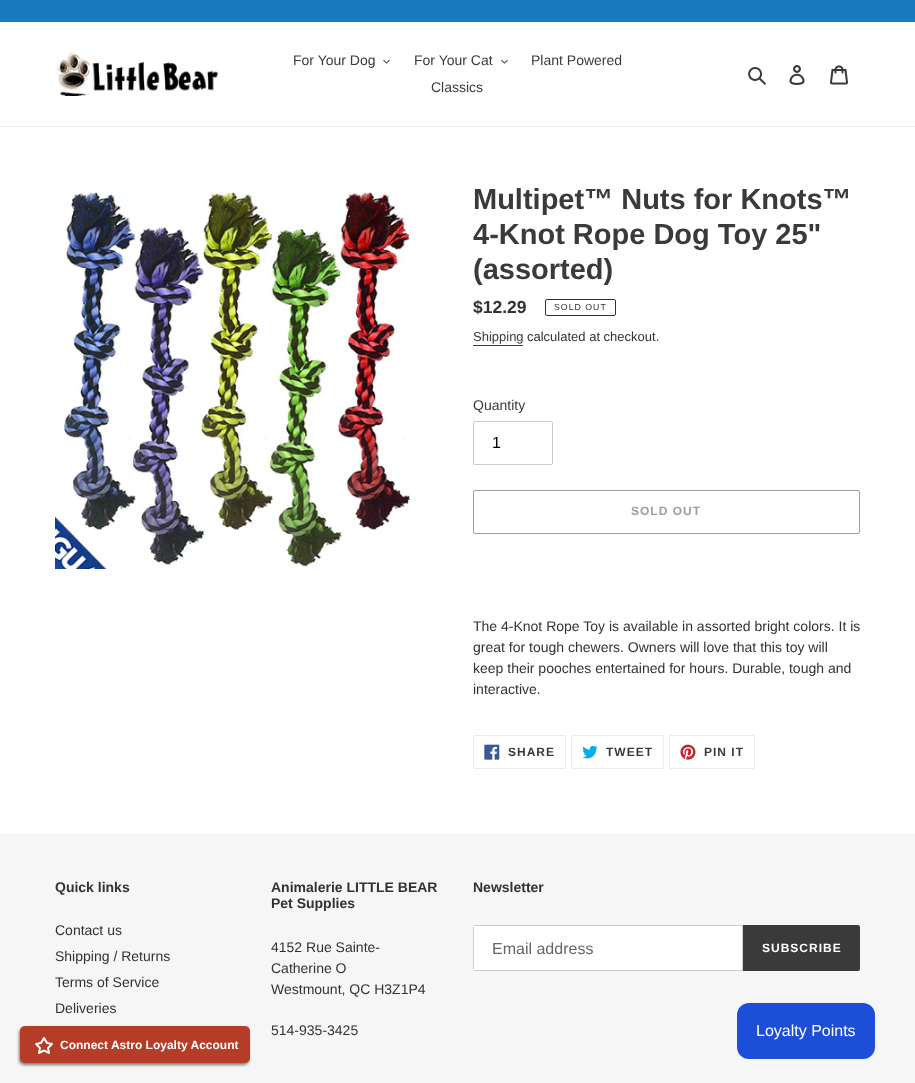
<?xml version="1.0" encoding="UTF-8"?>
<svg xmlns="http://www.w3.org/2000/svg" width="915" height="1083">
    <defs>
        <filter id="blur1" x="-50%" y="-200%" width="200%" height="500%"><feGaussianBlur stdDeviation="1.5"/></filter>
    </defs>
    <rect width="100%" height="100%" fill="#FFFFFF"/>
    <rect x="0" y="0" width="915" height="22" fill="#197BBD"/>
    <rect x="0" y="126" width="915" height="1" fill="#EBEBEB"/>
    <image x="56" y="52" width="163" height="44" href="img_01.png"/>
    <text x="293" y="65" font-family="Liberation Sans" font-size="14" fill="#3A3A3A">For Your Dog</text>
    <image x="383" y="59" width="7" height="5" href="img_02.png"/>
    <text x="414" y="65" font-family="Liberation Sans" font-size="14" fill="#3A3A3A">For Your Cat</text>
    <image x="501" y="59" width="7" height="5" href="img_02.png"/>
    <text x="531" y="65" font-family="Liberation Sans" font-size="14" fill="#3A3A3A">Plant Powered</text>
    <text x="431" y="92" font-family="Liberation Sans" font-size="14" fill="#3A3A3A">Classics</text>
    <image x="748" y="67" width="18" height="18" href="img_03.png"/>
    <image x="789" y="65" width="16" height="20" href="img_04.png"/>
    <image x="830" y="65" width="18" height="20" href="img_05.png"/>
    <image x="55" y="189" width="359" height="380" href="img_06.png"/>
    <text font-family="Liberation Sans" font-size="29" font-weight="700" fill="#3A3A3A">
        <tspan x="473" y="209">Multipet™ Nuts for Knots™</tspan>
        <tspan x="473" y="244">4-Knot Rope Dog Toy 25"</tspan>
        <tspan x="473" y="279">(assorted)</tspan>
    </text>
    <text x="473" y="313" font-family="Liberation Sans" font-size="17.5" font-weight="700" fill="#333232">$12.29</text>
    <rect x="545.5" y="299.5" width="70" height="16" rx="1.5" fill="none" stroke="#333232"/>
    <text x="554" y="310" font-family="Liberation Sans" font-size="8.75" letter-spacing="1" fill="#333232">SOLD OUT</text>
    <text x="473" y="341" font-family="Liberation Sans" font-size="13" fill="#3A3A3A">Shipping</text>
    <rect x="473" y="345" width="50" height="1" fill="#3A3A3A"/>
    <text x="527" y="341" font-family="Liberation Sans" font-size="13" fill="#333232">calculated at checkout.</text>
    <text x="473" y="410" font-family="Liberation Sans" font-size="14" fill="#3A3A3A">Quantity</text>
    <rect x="473.5" y="421.5" width="79" height="43" rx="1.5" fill="none" stroke="#CCCCCC"/>
    <text x="492" y="448" font-family="Liberation Sans" font-size="16" fill="#000000">1</text>
    <rect x="473.5" y="490.5" width="386" height="43" rx="1.5" fill="none" stroke="#9D9D9D"/>
    <text x="631" y="515" font-family="Liberation Sans" font-size="12" font-weight="700" letter-spacing="1" fill="#9D9D9D">SOLD OUT</text>
    <text font-family="Liberation Sans" font-size="14" fill="#333232">
        <tspan x="473" y="631">The 4-Knot Rope Toy is available in assorted bright colors. It is</tspan>
        <tspan x="473" y="652">great for tough chewers. Owners will love that this toy will</tspan>
        <tspan x="473" y="673">keep their pooches entertained for hours. Durable, tough and</tspan>
        <tspan x="473" y="694">interactive.</tspan>
    </text>
    <rect x="473.5" y="735.5" width="92" height="33" rx="1.5" fill="none" stroke="#EBEBEB"/>
    <image x="484" y="744" width="16" height="16" href="img_07.png"/>
    <text x="508" y="756" font-family="Liberation Sans" font-size="12" font-weight="700" letter-spacing="1" fill="#3A3A3A">SHARE</text>
    <rect x="571.5" y="735.5" width="92" height="33" rx="1.5" fill="none" stroke="#EBEBEB"/>
    <image x="582" y="745" width="16" height="14" href="img_08.png"/>
    <text x="606" y="756" font-family="Liberation Sans" font-size="12" font-weight="700" letter-spacing="1" fill="#3A3A3A">TWEET</text>
    <rect x="669.5" y="735.5" width="85" height="33" rx="1.5" fill="none" stroke="#EBEBEB"/>
    <image x="680" y="744" width="16" height="16" href="img_09.png"/>
    <text x="704" y="756" font-family="Liberation Sans" font-size="12" font-weight="700" letter-spacing="1" fill="#3A3A3A">PIN IT</text>
    <rect x="0" y="834" width="915" height="249" fill="#F6F6F6"/>
    <text x="55" y="892" font-family="Liberation Sans" font-size="14" font-weight="700" fill="#333232">Quick links</text>
    <text font-family="Liberation Sans" font-size="14" fill="#333232">
        <tspan x="55" y="935">Contact us</tspan>
        <tspan x="55" y="961">Shipping / Returns</tspan>
        <tspan x="55" y="987">Terms of Service</tspan>
        <tspan x="55" y="1013">Deliveries</tspan>
    </text>
    <text font-family="Liberation Sans" font-size="14" font-weight="700" fill="#333232">
        <tspan x="271" y="892">Animalerie LITTLE BEAR</tspan>
        <tspan x="271" y="908">Pet Supplies</tspan>
    </text>
    <text font-family="Liberation Sans" font-size="14" fill="#333232">
        <tspan x="271" y="952">4152 Rue Sainte-</tspan>
        <tspan x="271" y="973">Catherine O</tspan>
        <tspan x="271" y="994">Westmount, QC H3Z1P4</tspan>
    </text>
    <text x="271" y="1035" font-family="Liberation Sans" font-size="14" fill="#333232">514-935-3425</text>
    <text x="473" y="892" font-family="Liberation Sans" font-size="14" font-weight="700" fill="#333232">Newsletter</text>
    <path d="M 475 925.5 H 742.5 V 970.5 H 475 C 474 970.5 473.5 970 473.5 969 V 927 C 473.5 926 474 925.5 475 925.5 Z" fill="#FFFFFF" stroke="#CCCCCC"/>
    <text x="492" y="954" font-family="Liberation Sans" font-size="16" fill="#666666">Email address</text>
    <path d="M 743 925 H 858 C 859 925 860 926 860 927 V 969 C 860 970 859 971 858 971 H 743 Z" fill="#3A3A3A"/>
    <text x="762" y="952" font-family="Liberation Sans" font-size="12" font-weight="700" letter-spacing="1" fill="#FFFFFF">SUBSCRIBE</text>
    <rect x="737" y="1003" width="138" height="56" rx="12" fill="#1D4ED8"/>
    <text x="756" y="1036" font-family="Liberation Sans" font-size="16" fill="#FFFFFF">Loyalty Points</text>
    <rect x="19" y="1028" width="230" height="37" rx="5" fill="#000000" fill-opacity="0.5" filter="url(#blur1)"/>
    <rect x="20" y="1026" width="230" height="37" rx="5" fill="#B53C27"/>
    <image x="35" y="1037" width="18" height="17" href="img_10.png"/>
    <text x="60" y="1049" font-family="Liberation Sans" font-size="12" font-weight="700" fill="#FFFFFF">Connect Astro Loyalty Account</text>
</svg>
